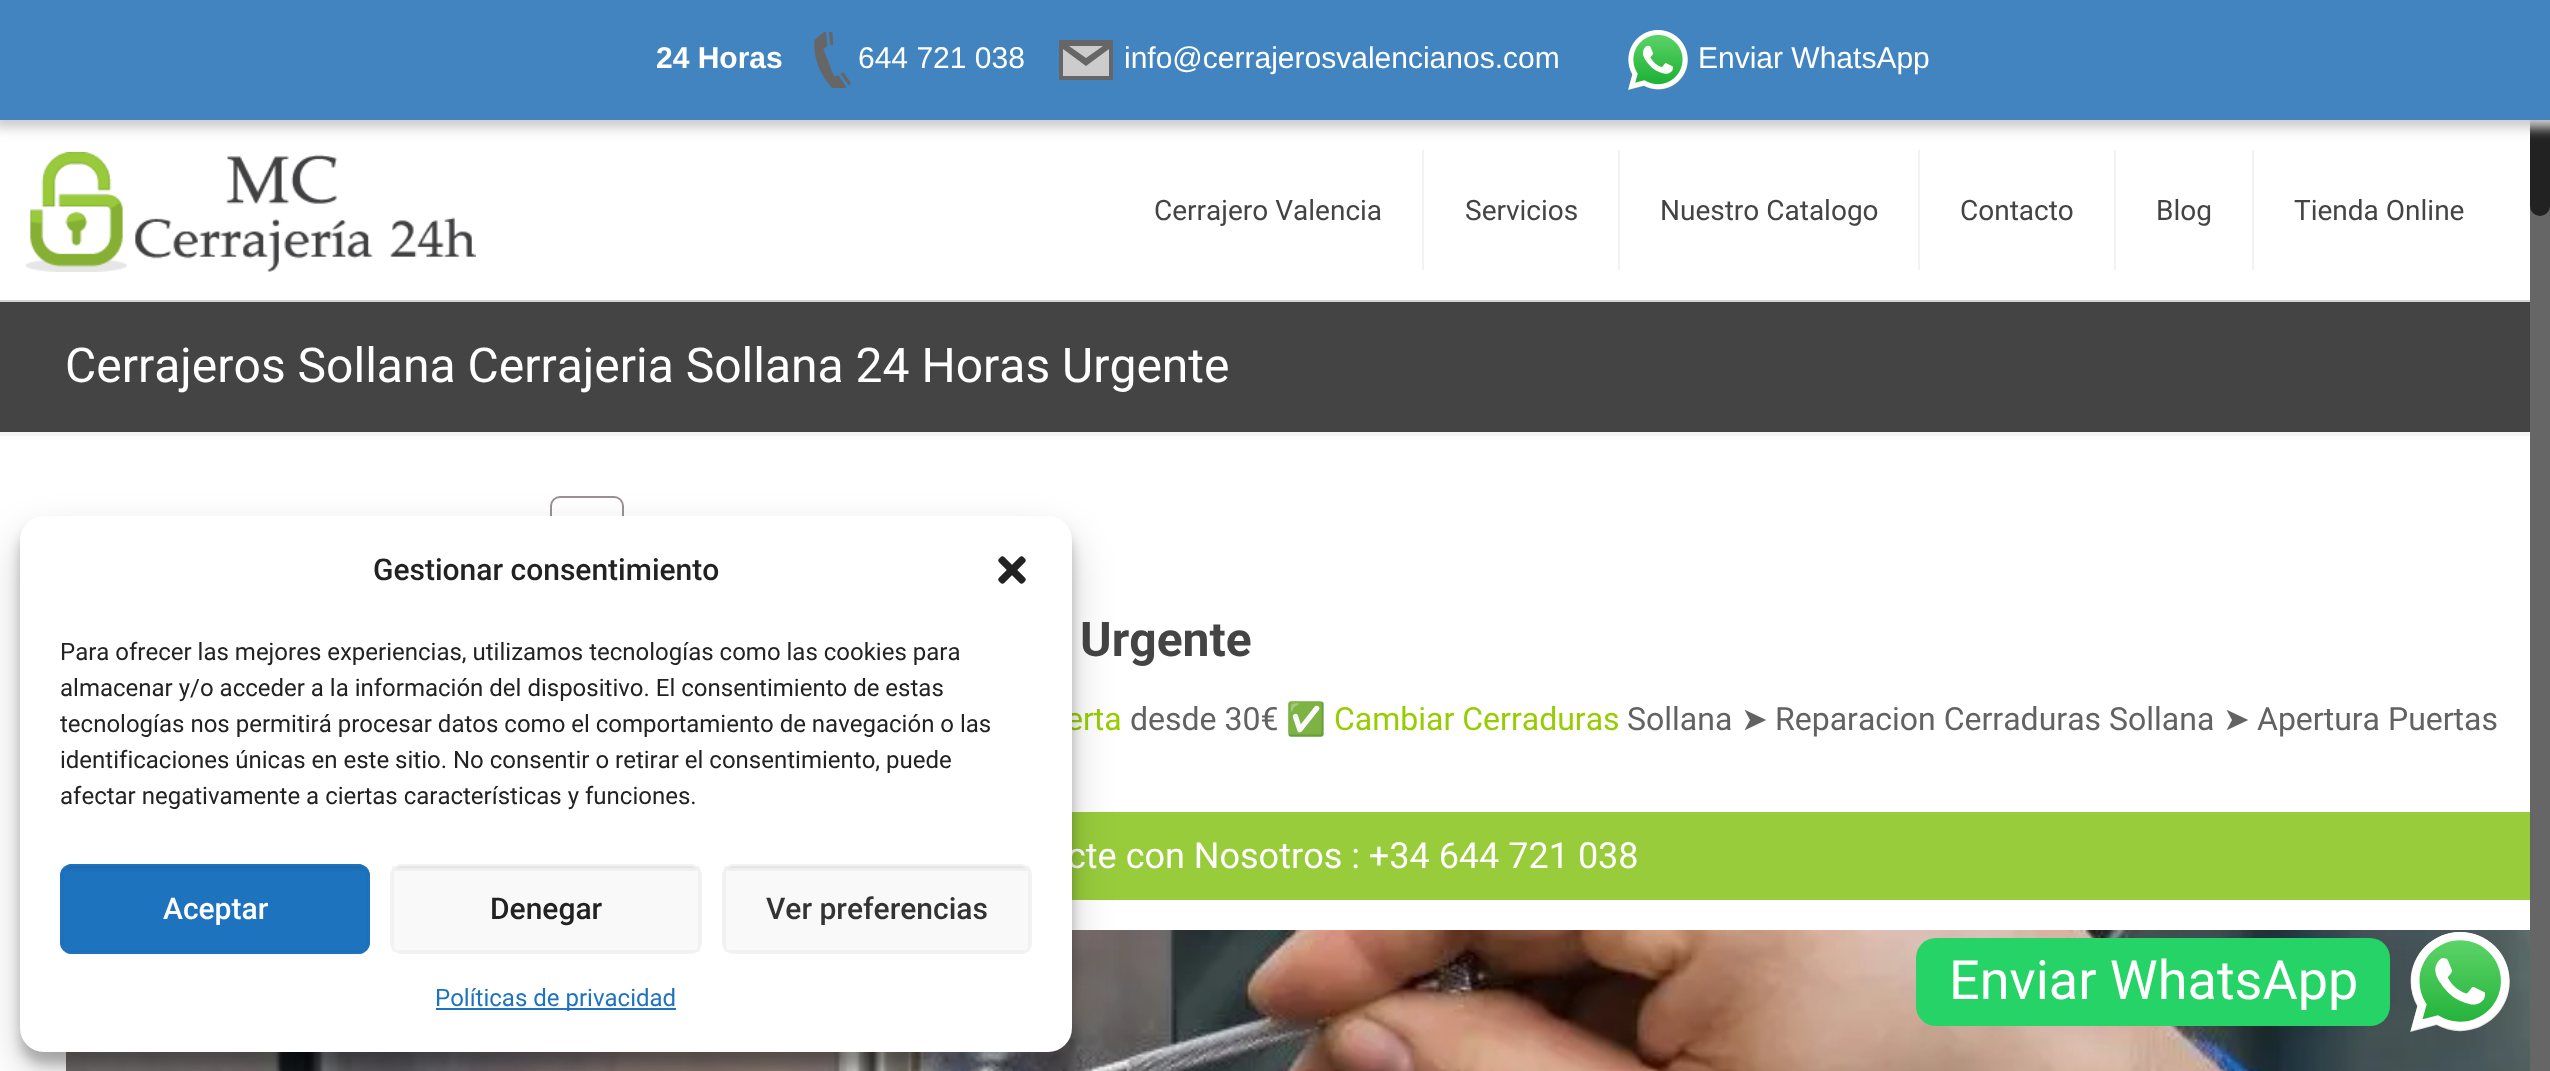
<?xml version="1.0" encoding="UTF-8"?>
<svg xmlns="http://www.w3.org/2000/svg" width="2550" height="1071">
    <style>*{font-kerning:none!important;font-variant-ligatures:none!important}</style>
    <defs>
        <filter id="blur1" x="-50%" y="-200%" width="200%" height="500%"><feGaussianBlur stdDeviation="6"/></filter>
        <filter id="blur2" x="-50%" y="-200%" width="200%" height="500%"><feGaussianBlur stdDeviation="20"/></filter>
    </defs>
    <rect width="100%" height="100%" fill="#FFFFFF"/>
    <rect x="2530" y="206" width="20" height="865" fill="#666666"/>
    <rect x="2530" y="0" width="20" height="216" rx="10" fill="#222222"/>
    <rect x="-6" y="-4" width="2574" height="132" fill="#CCCCCC" filter="url(#blur1)"/>
    <rect x="0" y="0" width="2550" height="120" fill="#4184BF"/>
    <text x="656" y="68" font-family="Liberation Sans" font-size="30" font-weight="700" fill="#FFFFFF">24 Horas</text>
    <image x="814" y="32" width="37" height="57" href="img_01.png"/>
    <text x="858" y="68" font-family="Liberation Sans" font-size="30" fill="#FFFFFF">644 721 038</text>
    <text x="1124" y="68" font-family="Liberation Sans" font-size="30" fill="#FFFFFF">info@cerrajerosvalencianos.com</text>
    <rect x="1063" y="46" width="46" height="30" fill="#CCCCCC"/>
    <path d="M 1059 40 V 80 H 1113 V 40 Z M 1103 46 L 1086 58 L 1069 46 Z M 1109 76 H 1063 V 49 L 1086 66 L 1109 49 Z" fill="#666666"/>
    <image x="1628" y="30" width="60" height="60" href="img_02.png"/>
    <text x="1698" y="68" font-family="Liberation Sans" font-size="30" fill="#FFFFFF">Enviar WhatsApp</text>
    <rect x="0" y="300" width="2530" height="2" fill="#D3D3D3"/>
    <image x="26" y="152" width="450" height="120" href="img_03.png"/>
    <rect x="1422" y="150" width="2" height="120" fill="#F2F2F2"/>
    <text x="1154" y="220" font-family="Roboto" font-size="28" fill="#444444">Cerrajero Valencia</text>
    <rect x="1618" y="150" width="2" height="120" fill="#F2F2F2"/>
    <text x="1465" y="220" font-family="Roboto" font-size="28" fill="#444444">Servicios</text>
    <rect x="1918" y="150" width="2" height="120" fill="#F2F2F2"/>
    <text x="1660" y="220" font-family="Roboto" font-size="28" fill="#444444">Nuestro Catalogo</text>
    <rect x="2114" y="150" width="2" height="120" fill="#F2F2F2"/>
    <text x="1960" y="220" font-family="Roboto" font-size="28" fill="#444444">Contacto</text>
    <rect x="2252" y="150" width="2" height="120" fill="#F2F2F2"/>
    <text x="2156" y="220" font-family="Roboto" font-size="28" fill="#444444">Blog</text>
    <text x="2294" y="220" font-family="Roboto" font-size="28" fill="#444444">Tienda Online</text>
    <rect x="0" y="302" width="2530" height="130" fill="#444444"/>
    <text x="65" y="382" font-family="Roboto" font-size="48" fill="#FFFFFF">Cerrajeros Sollana Cerrajeria Sollana 24 Horas Urgente</text>
    <rect x="0" y="432" width="2530" height="4" fill="#F5F5F5"/>
    <rect x="551" y="497" width="72" height="62" rx="9" fill="none" stroke="#999191" stroke-width="2"/>
    <text x="1080" y="656" font-family="Roboto" font-size="48" font-weight="700" fill="#444444">Urgente</text>
    <text x="1066" y="730" font-family="Roboto" font-size="32" fill="#97CC02">erta</text>
    <text x="1130" y="730" font-family="Roboto" font-size="32" fill="#626262">desde 30€</text>
    <text x="1286" y="730" font-family="Noto Color Emoji" font-size="32" fill="#626262">✅</text>
    <text x="1334" y="730" font-family="Roboto" font-size="32" fill="#97CC02">Cambiar Cerraduras</text>
    <text x="1627" y="730" font-family="Roboto" font-size="32" fill="#626262">Sollana</text>
    <text x="1741" y="730" font-family="DejaVu Sans" font-size="32" fill="#626262">➤</text>
    <text x="1775" y="730" font-family="Roboto" font-size="32" fill="#626262">Reparacion Cerraduras Sollana</text>
    <text x="2223" y="730" font-family="DejaVu Sans" font-size="32" fill="#626262">➤</text>
    <text x="2257" y="730" font-family="Roboto" font-size="32" fill="#626262">Apertura Puertas</text>
    <rect x="1072" y="812" width="1458" height="88" fill="#98CC3B"/>
    <text x="1067" y="868" font-family="Roboto" font-size="36" fill="#FFFFFF">cte con Nosotros : +34 644 721 038</text>
    <image x="66" y="930" width="2464" height="141" href="img_04.png"/>
    <rect x="20" y="528" width="1052" height="536" rx="24" fill="#000000" fill-opacity="0.23" filter="url(#blur1)"/>
    <rect x="20" y="536" width="1052" height="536" rx="24" fill="#000000" fill-opacity="0.19" filter="url(#blur2)"/>
    <rect x="20" y="516" width="1052" height="536" rx="24" fill="#FFFFFF"/>
    <text x="373" y="580" font-family="Roboto" font-size="30" font-weight="500" fill="#222222">Gestionar consentimiento</text>
    <image x="998" y="556" width="28" height="28" href="img_05.png"/>
    <text font-family="Roboto" font-size="24" fill="#222222">
        <tspan x="60" y="660">Para ofrecer las mejores experiencias, utilizamos tecnologías como las cookies para</tspan>
        <tspan x="60" y="696">almacenar y/o acceder a la información del dispositivo. El consentimiento de estas</tspan>
        <tspan x="60" y="732">tecnologías nos permitirá procesar datos como el comportamiento de navegación o las</tspan>
        <tspan x="60" y="768">identificaciones únicas en este sitio. No consentir o retirar el consentimiento, puede</tspan>
        <tspan x="60" y="804">afectar negativamente a ciertas características y funciones.</tspan>
    </text>
    <rect x="60" y="864" width="310" height="90" rx="12" fill="#1E73BE"/>
    <image x="62" y="866" width="306" height="5" href="img_06.png"/>
    <rect x="63" y="867" width="304" height="84" fill="none" stroke="#000000" stroke-opacity="0.03" stroke-width="2"/>
    <rect x="61" y="865" width="308" height="88" rx="11" fill="none" stroke="#1E73BE" stroke-width="2"/>
    <text x="163" y="919" font-family="Roboto" font-size="30" font-weight="500" fill="#FFFFFF">Aceptar</text>
    <rect x="390" y="864" width="312" height="90" rx="12" fill="#F9F9F9"/>
    <image x="392" y="866" width="308" height="5" href="img_07.png"/>
    <rect x="393" y="867" width="306" height="84" fill="none" stroke="#000000" stroke-opacity="0.03" stroke-width="2"/>
    <rect x="391" y="865" width="310" height="88" rx="11" fill="none" stroke="#F2F2F2" stroke-width="2"/>
    <text x="490" y="919" font-family="Roboto" font-size="30" font-weight="500" fill="#222222">Denegar</text>
    <rect x="722" y="864" width="310" height="90" rx="12" fill="#F9F9F9"/>
    <image x="724" y="866" width="306" height="5" href="img_08.png"/>
    <rect x="725" y="867" width="304" height="84" fill="none" stroke="#000000" stroke-opacity="0.03" stroke-width="2"/>
    <rect x="723" y="865" width="308" height="88" rx="11" fill="none" stroke="#F2F2F2" stroke-width="2"/>
    <text x="766" y="919" font-family="Roboto" font-size="30" font-weight="500" fill="#333333">Ver preferencias</text>
    <rect x="436" y="1008" width="240" height="2" fill="#1E73BE"/>
    <text x="435" y="1006" font-family="Roboto" font-size="24" fill="#1E73BE">Políticas de privacidad</text>
    <rect x="1916" y="938" width="474" height="88" rx="20" fill="#25D366"/>
    <text x="1949" y="999" font-family="Roboto" font-size="54" fill="#FFFFFF">Enviar WhatsApp</text>
    <image x="2410" y="932" width="100" height="100" href="img_09.png"/>
</svg>
